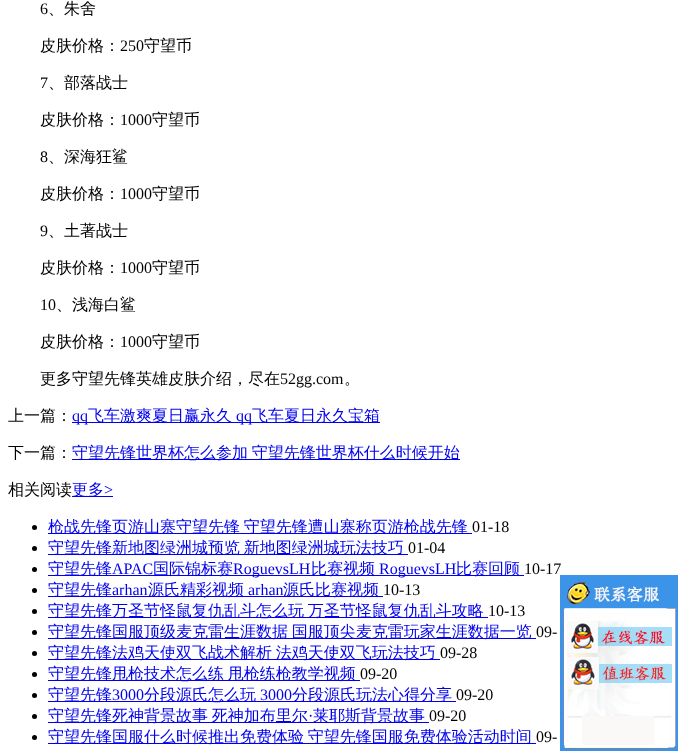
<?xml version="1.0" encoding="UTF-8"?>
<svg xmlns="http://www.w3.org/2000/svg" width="678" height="751">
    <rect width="100%" height="100%" fill="#FFFFFF"/>
    <text x="40" y="14" font-family="Liberation Serif" font-size="16" fill="#000000">6</text>
    <text x="48" y="14" font-family="WenQuanYi Zen Hei" font-size="16" font-weight="500" fill="#000000">、朱舍</text>
    <text x="40" y="51" font-family="WenQuanYi Zen Hei" font-size="16" font-weight="500" fill="#000000">皮肤价格：</text>
    <text x="120" y="51" font-family="Liberation Serif" font-size="16" fill="#000000">250</text>
    <text x="144" y="51" font-family="WenQuanYi Zen Hei" font-size="16" font-weight="500" fill="#000000">守望币</text>
    <text x="40" y="88" font-family="Liberation Serif" font-size="16" fill="#000000">7</text>
    <text x="48" y="88" font-family="WenQuanYi Zen Hei" font-size="16" font-weight="500" fill="#000000">、部落战士</text>
    <text x="40" y="125" font-family="WenQuanYi Zen Hei" font-size="16" font-weight="500" fill="#000000">皮肤价格：</text>
    <text x="120" y="125" font-family="Liberation Serif" font-size="16" fill="#000000">1000</text>
    <text x="152" y="125" font-family="WenQuanYi Zen Hei" font-size="16" font-weight="500" fill="#000000">守望币</text>
    <text x="40" y="162" font-family="Liberation Serif" font-size="16" fill="#000000">8</text>
    <text x="48" y="162" font-family="WenQuanYi Zen Hei" font-size="16" font-weight="500" fill="#000000">、深海狂鲨</text>
    <text x="40" y="199" font-family="WenQuanYi Zen Hei" font-size="16" font-weight="500" fill="#000000">皮肤价格：</text>
    <text x="120" y="199" font-family="Liberation Serif" font-size="16" fill="#000000">1000</text>
    <text x="152" y="199" font-family="WenQuanYi Zen Hei" font-size="16" font-weight="500" fill="#000000">守望币</text>
    <text x="40" y="236" font-family="Liberation Serif" font-size="16" fill="#000000">9</text>
    <text x="48" y="236" font-family="WenQuanYi Zen Hei" font-size="16" font-weight="500" fill="#000000">、土著战士</text>
    <text x="40" y="273" font-family="WenQuanYi Zen Hei" font-size="16" font-weight="500" fill="#000000">皮肤价格：</text>
    <text x="120" y="273" font-family="Liberation Serif" font-size="16" fill="#000000">1000</text>
    <text x="152" y="273" font-family="WenQuanYi Zen Hei" font-size="16" font-weight="500" fill="#000000">守望币</text>
    <text x="40" y="310" font-family="Liberation Serif" font-size="16" fill="#000000">10</text>
    <text x="56" y="310" font-family="WenQuanYi Zen Hei" font-size="16" font-weight="500" fill="#000000">、浅海白鲨</text>
    <text x="40" y="347" font-family="WenQuanYi Zen Hei" font-size="16" font-weight="500" fill="#000000">皮肤价格：</text>
    <text x="120" y="347" font-family="Liberation Serif" font-size="16" fill="#000000">1000</text>
    <text x="152" y="347" font-family="WenQuanYi Zen Hei" font-size="16" font-weight="500" fill="#000000">守望币</text>
    <text x="40" y="384" font-family="WenQuanYi Zen Hei" font-size="16" font-weight="500" fill="#000000">更多守望先锋英雄皮肤介绍，尽在</text>
    <text x="280" y="384" font-family="Liberation Serif" font-size="16" fill="#000000">52gg.com</text>
    <text x="344" y="384" font-family="WenQuanYi Zen Hei" font-size="16" font-weight="500" fill="#000000">。</text>
    <text x="8" y="421" font-family="WenQuanYi Zen Hei" font-size="16" font-weight="500" fill="#000000">上一篇：</text>
    <rect x="72" y="422" width="308" height="1" fill="#0000EE"/>
    <text x="72" y="421" font-family="Liberation Serif" font-size="16" fill="#0000EE">qq</text>
    <text x="88" y="421" font-family="WenQuanYi Zen Hei" font-size="16" font-weight="500" fill="#0000EE">飞车激爽夏日赢永久</text>
    <text x="236" y="421" font-family="Liberation Serif" font-size="16" fill="#0000EE">qq</text>
    <text x="252" y="421" font-family="WenQuanYi Zen Hei" font-size="16" font-weight="500" fill="#0000EE">飞车夏日永久宝箱</text>
    <text x="8" y="458" font-family="WenQuanYi Zen Hei" font-size="16" font-weight="500" fill="#000000">下一篇：</text>
    <rect x="72" y="459" width="388" height="1" fill="#0000EE"/>
    <text x="72" y="458" word-spacing="-1" font-family="WenQuanYi Zen Hei" font-size="16" font-weight="500" fill="#0000EE">守望先锋世界杯怎么参加 守望先锋世界杯什么时候开始</text>
    <text x="8" y="495" font-family="WenQuanYi Zen Hei" font-size="16" font-weight="500" fill="#000000">相关阅读</text>
    <rect x="72" y="496" width="41" height="1" fill="#0000EE"/>
    <text x="72" y="495" font-family="WenQuanYi Zen Hei" font-size="16" font-weight="500" fill="#0000EE">更多</text>
    <text x="104" y="495" font-family="Liberation Serif" font-size="16" fill="#0000EE">&gt;</text>
    <circle cx="34.5" cy="527.5" r="2.5" fill="#000000"/>
    <rect x="48" y="533" width="424" height="1" fill="#0000EE"/>
    <text x="48" y="532" word-spacing="-1" font-family="WenQuanYi Zen Hei" font-size="16" font-weight="500" fill="#0000EE">枪战先锋页游山寨守望先锋 守望先锋遭山寨称页游枪战先锋</text>
    <text x="472" y="532" font-family="Liberation Serif" font-size="16" fill="#000000">01-18</text>
    <circle cx="34.5" cy="548.5" r="2.5" fill="#000000"/>
    <rect x="48" y="554" width="360" height="1" fill="#0000EE"/>
    <text x="48" y="553" word-spacing="-1" font-family="WenQuanYi Zen Hei" font-size="16" font-weight="500" fill="#0000EE">守望先锋新地图绿洲城预览 新地图绿洲城玩法技巧</text>
    <text x="408" y="553" font-family="Liberation Serif" font-size="16" fill="#000000">01-04</text>
    <circle cx="34.5" cy="569.5" r="2.5" fill="#000000"/>
    <rect x="48" y="575" width="476" height="1" fill="#0000EE"/>
    <text x="48" y="574" font-family="WenQuanYi Zen Hei" font-size="16" font-weight="500" fill="#0000EE">守望先锋</text>
    <text x="112" y="574" font-family="Liberation Serif" font-size="16" fill="#0000EE">APAC</text>
    <text x="153" y="574" font-family="WenQuanYi Zen Hei" font-size="16" font-weight="500" fill="#0000EE">国际锦标赛</text>
    <text x="233" y="574" font-family="Liberation Serif" font-size="16" fill="#0000EE">RoguevsLH</text>
    <text x="311" y="574" font-family="WenQuanYi Zen Hei" font-size="16" font-weight="500" fill="#0000EE">比赛视频</text>
    <text x="379" y="574" font-family="Liberation Serif" font-size="16" fill="#0000EE">RoguevsLH</text>
    <text x="456" y="574" font-family="WenQuanYi Zen Hei" font-size="16" font-weight="500" fill="#0000EE">比赛回顾</text>
    <text x="524" y="574" font-family="Liberation Serif" font-size="16" fill="#000000">10-17</text>
    <circle cx="34.5" cy="590.5" r="2.5" fill="#000000"/>
    <rect x="48" y="596" width="335" height="1" fill="#0000EE"/>
    <text x="48" y="595" font-family="WenQuanYi Zen Hei" font-size="16" font-weight="500" fill="#0000EE">守望先锋</text>
    <text x="112" y="595" font-family="Liberation Serif" font-size="16" fill="#0000EE">arhan</text>
    <text x="148" y="595" font-family="WenQuanYi Zen Hei" font-size="16" font-weight="500" fill="#0000EE">源氏精彩视频</text>
    <text x="248" y="595" font-family="Liberation Serif" font-size="16" fill="#0000EE">arhan</text>
    <text x="283" y="595" font-family="WenQuanYi Zen Hei" font-size="16" font-weight="500" fill="#0000EE">源氏比赛视频</text>
    <text x="383" y="595" font-family="Liberation Serif" font-size="16" fill="#000000">10-13</text>
    <circle cx="34.5" cy="611.5" r="2.5" fill="#000000"/>
    <rect x="48" y="617" width="440" height="1" fill="#0000EE"/>
    <text x="48" y="616" word-spacing="-1" font-family="WenQuanYi Zen Hei" font-size="16" font-weight="500" fill="#0000EE">守望先锋万圣节怪鼠复仇乱斗怎么玩 万圣节怪鼠复仇乱斗攻略</text>
    <text x="488" y="616" font-family="Liberation Serif" font-size="16" fill="#000000">10-13</text>
    <circle cx="34.5" cy="632.5" r="2.5" fill="#000000"/>
    <rect x="48" y="638" width="488" height="1" fill="#0000EE"/>
    <text x="48" y="637" word-spacing="-1" font-family="WenQuanYi Zen Hei" font-size="16" font-weight="500" fill="#0000EE">守望先锋国服顶级麦克雷生涯数据 国服顶尖麦克雷玩家生涯数据一览</text>
    <text x="536" y="637" font-family="Liberation Serif" font-size="16" fill="#000000">09-</text>
    <circle cx="34.5" cy="653.5" r="2.5" fill="#000000"/>
    <rect x="48" y="659" width="392" height="1" fill="#0000EE"/>
    <text x="48" y="658" word-spacing="-1" font-family="WenQuanYi Zen Hei" font-size="16" font-weight="500" fill="#0000EE">守望先锋法鸡天使双飞战术解析 法鸡天使双飞玩法技巧</text>
    <text x="440" y="658" font-family="Liberation Serif" font-size="16" fill="#000000">09-28</text>
    <circle cx="34.5" cy="674.5" r="2.5" fill="#000000"/>
    <rect x="48" y="680" width="312" height="1" fill="#0000EE"/>
    <text x="48" y="679" word-spacing="-1" font-family="WenQuanYi Zen Hei" font-size="16" font-weight="500" fill="#0000EE">守望先锋甩枪技术怎么练 甩枪练枪教学视频</text>
    <text x="360" y="679" font-family="Liberation Serif" font-size="16" fill="#000000">09-20</text>
    <circle cx="34.5" cy="695.5" r="2.5" fill="#000000"/>
    <rect x="48" y="701" width="408" height="1" fill="#0000EE"/>
    <text x="48" y="700" font-family="WenQuanYi Zen Hei" font-size="16" font-weight="500" fill="#0000EE">守望先锋</text>
    <text x="112" y="700" font-family="Liberation Serif" font-size="16" fill="#0000EE">3000</text>
    <text x="144" y="700" font-family="WenQuanYi Zen Hei" font-size="16" font-weight="500" fill="#0000EE">分段源氏怎么玩</text>
    <text x="260" y="700" font-family="Liberation Serif" font-size="16" fill="#0000EE">3000</text>
    <text x="292" y="700" font-family="WenQuanYi Zen Hei" font-size="16" font-weight="500" fill="#0000EE">分段源氏玩法心得分享</text>
    <text x="456" y="700" font-family="Liberation Serif" font-size="16" fill="#000000">09-20</text>
    <circle cx="34.5" cy="716.5" r="2.5" fill="#000000"/>
    <rect x="48" y="722" width="381" height="1" fill="#0000EE"/>
    <text x="48" y="721" word-spacing="-1" font-family="WenQuanYi Zen Hei" font-size="16" font-weight="500" fill="#0000EE">守望先锋死神背景故事 死神加布里尔</text>
    <text x="308" y="721" font-family="Liberation Serif" font-size="16" fill="#0000EE">·</text>
    <text x="313" y="721" font-family="WenQuanYi Zen Hei" font-size="16" font-weight="500" fill="#0000EE">莱耶斯背景故事</text>
    <text x="429" y="721" font-family="Liberation Serif" font-size="16" fill="#000000">09-20</text>
    <circle cx="34.5" cy="737.5" r="2.5" fill="#000000"/>
    <rect x="48" y="743" width="488" height="1" fill="#0000EE"/>
    <text x="48" y="742" word-spacing="-1" font-family="WenQuanYi Zen Hei" font-size="16" font-weight="500" fill="#0000EE">守望先锋国服什么时候推出免费体验 守望先锋国服免费体验活动时间</text>
    <text x="536" y="742" font-family="Liberation Serif" font-size="16" fill="#000000">09-</text>
    <image x="560" y="575" width="118" height="176" href="img_01.png"/>
</svg>
